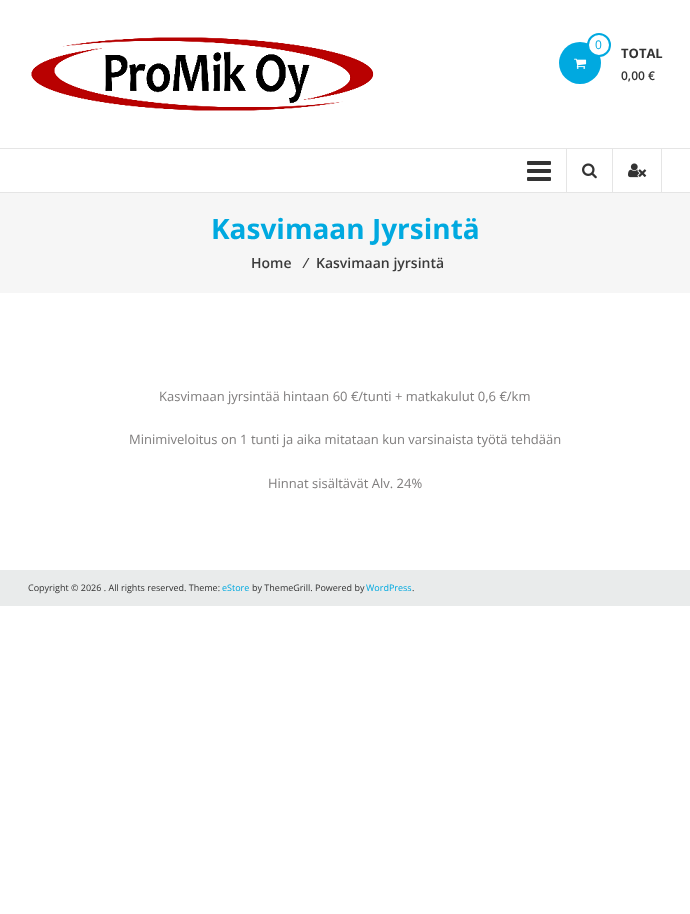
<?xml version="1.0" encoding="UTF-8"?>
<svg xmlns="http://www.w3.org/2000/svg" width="690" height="914">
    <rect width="100%" height="100%" fill="#FFFFFF"/>
    <image x="31" y="37" width="343" height="74" href="img_01.png"/>
    <circle cx="580" cy="63" r="21" fill="#00A9E0"/>
    <circle cx="599" cy="45" r="11" fill="#FFFFFF" stroke="#00A9E0" stroke-width="2"/>
    <text x="595" y="49" font-family="Open Sans" font-size="12" fill="#00A9E0">0</text>
    <image x="574" y="58" width="13" height="11" href="img_02.png"/>
    <text x="621" y="58" font-family="Open Sans" font-size="13" font-weight="700" fill="#333333">TOTAL</text>
    <text x="621" y="80" font-family="Open Sans" font-size="12" font-weight="600" fill="#333333">0,00 €</text>
    <rect x="0" y="148" width="690" height="1" fill="#E5E5E5"/>
    <rect x="0" y="192" width="690" height="1" fill="#E5E5E5"/>
    <image x="527" y="161" width="24" height="20" href="img_03.png"/>
    <rect x="566" y="149" width="1" height="43" fill="#E5E5E5"/>
    <image x="582" y="163" width="15" height="16" href="img_04.png"/>
    <rect x="661" y="149" width="1" height="43" fill="#E5E5E5"/>
    <rect x="612" y="149" width="1" height="43" fill="#E5E5E5"/>
    <image x="628" y="163" width="19" height="15" href="img_05.png"/>
    <rect x="0" y="193" width="690" height="100" fill="#F6F6F6"/>
    <text x="211" y="239" font-family="Open Sans" font-size="28" font-weight="700" fill="#00A9E0">Kasvimaan Jyrsintä</text>
    <text x="251" y="268" font-family="Open Sans" font-size="14" font-weight="600" fill="#3B3B3B">Home</text>
    <text x="305" y="268" font-family="Open Sans" font-size="14" font-weight="600" fill="#3B3B3B">⁄</text>
    <text x="316" y="268" font-family="Open Sans" font-size="14" font-weight="600" fill="#3B3B3B">Kasvimaan jyrsintä</text>
    <text x="159" y="401" font-family="Open Sans" font-size="13" fill="#7F7D7D">Kasvimaan jyrsintää hintaan 60 €/tunti + matkakulut 0,6 €/km</text>
    <text x="129" y="444" font-family="Open Sans" font-size="13" fill="#7F7D7D">Minimiveloitus on 1 tunti ja aika mitataan kun varsinaista työtä tehdään</text>
    <text x="268" y="488" font-family="Open Sans" font-size="13" fill="#7F7D7D">Hinnat sisältävät Alv. 24%</text>
    <rect x="0" y="570" width="690" height="36" fill="#E9EBEB"/>
    <text x="28" y="591" font-family="Open Sans" font-size="9" fill="#333333">Copyright © 2026 . All rights reserved. Theme:</text>
    <text x="222" y="591" font-family="Open Sans" font-size="9" fill="#00A9E0">eStore</text>
    <text x="252" y="591" font-family="Open Sans" font-size="9" fill="#333333">by ThemeGrill. Powered by</text>
    <text x="366" y="591" font-family="Open Sans" font-size="9" fill="#00A9E0">WordPress</text>
    <text x="412" y="591" font-family="Open Sans" font-size="9" fill="#333333">.</text>
</svg>
